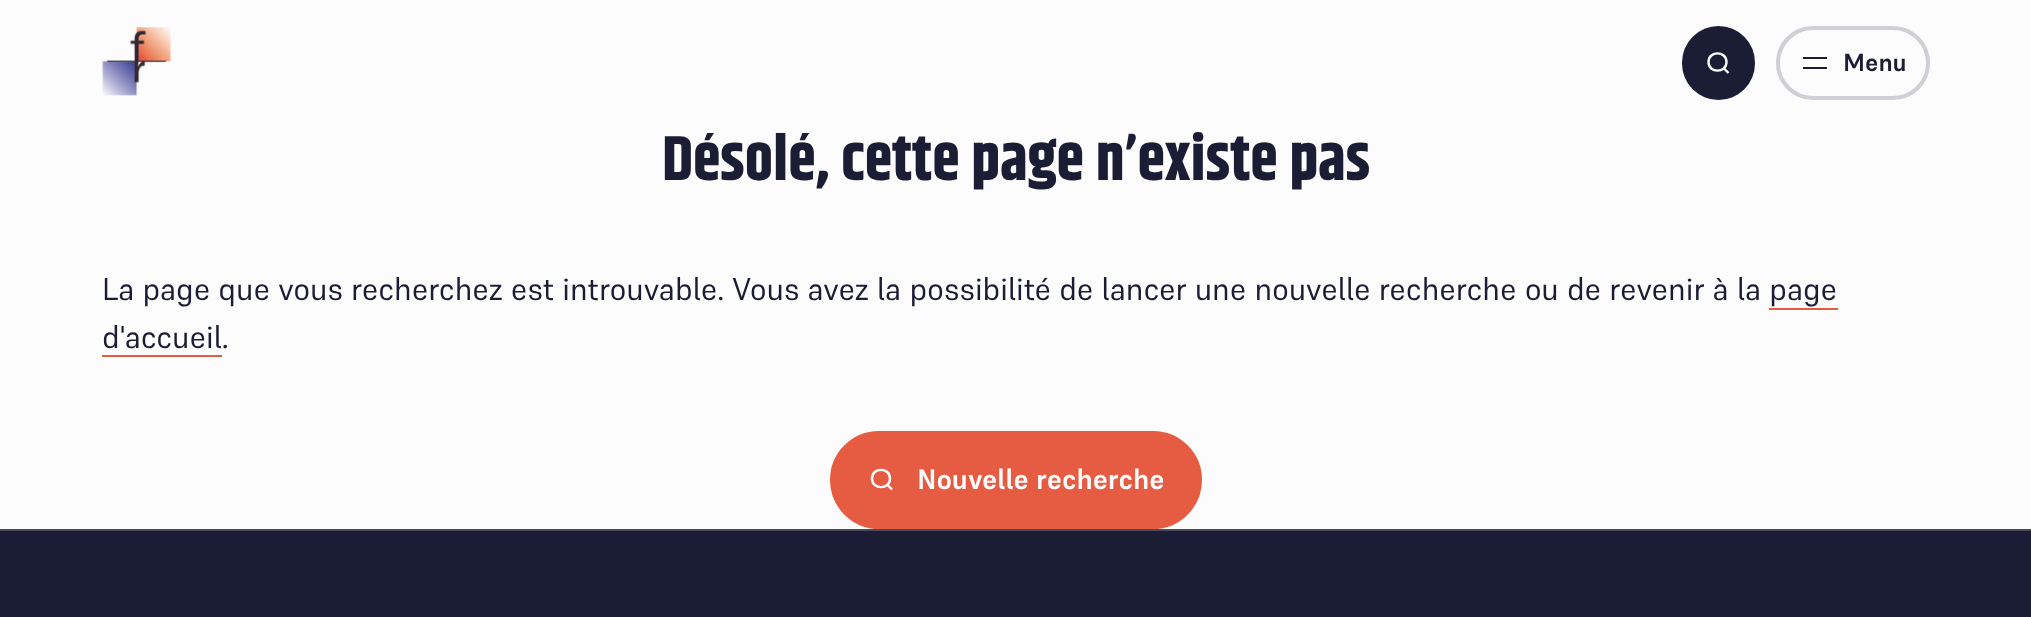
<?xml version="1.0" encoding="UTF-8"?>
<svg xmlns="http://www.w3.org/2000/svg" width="2031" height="617">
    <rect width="100%" height="100%" fill="#FCFCFD"/>
    <image x="102" y="27" width="69" height="69" href="img_01.png"/>
    <rect x="1682" y="26" width="73" height="74" rx="36.5" fill="#1B1D34"/>
    <path d="M 1708.5 62 C 1708.5 73.5 1726.5 73.5 1726.5 62 C 1726.5 50.5 1708.5 50.5 1708.5 62 Z M 1724 68.5 L 1728.5 73" fill="none" stroke="#FCFCFD" stroke-width="2.4"/>
    <rect x="1778" y="28" width="150" height="70" rx="35" fill="none" stroke="#CFCFD5" stroke-width="4"/>
    <rect x="1803" y="57" width="24" height="2" fill="#1B1D34"/>
    <rect x="1803" y="67" width="24" height="2" fill="#1B1D34"/>
    <text x="1843" y="71" font-family="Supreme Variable" font-size="24.5" font-weight="700" fill="#1B1D34">Menu</text>
    <text x="662" y="180" font-family="Khand" font-size="63" font-weight="700" fill="#1B1D34">Désolé, cette page n’existe pas</text>
    <text font-family="Supreme Variable" font-size="31.5" fill="#1B1D34">
        <tspan x="102" y="300">La page que vous recherchez est introuvable. Vous avez la possibilité de lancer une nouvelle recherche ou de revenir à la page</tspan>
        <tspan x="102" y="348">d'accueil.</tspan>
    </text>
    <rect x="1769" y="308" width="69" height="2" fill="#E65C43"/>
    <rect x="102" y="355" width="120" height="2" fill="#E65C43"/>
    <rect x="832" y="433" width="368" height="94" rx="47" fill="#E65C43" stroke="#E65C43" stroke-width="4"/>
    <path d="M 872 478.5 C 872 490 890 490 890 478.5 C 890 467 872 467 872 478.5 Z M 887.5 485 L 892 489.5" fill="none" stroke="#FCFCFD" stroke-width="2.4"/>
    <text x="917" y="489" font-family="Supreme Variable" font-size="28" font-weight="700" fill="#FCFCFD">Nouvelle recherche</text>
    <rect x="0" y="531" width="2031" height="86" fill="#1B1D34"/>
    <rect x="0" y="529" width="2031" height="2" fill="#484A5C"/>
</svg>
